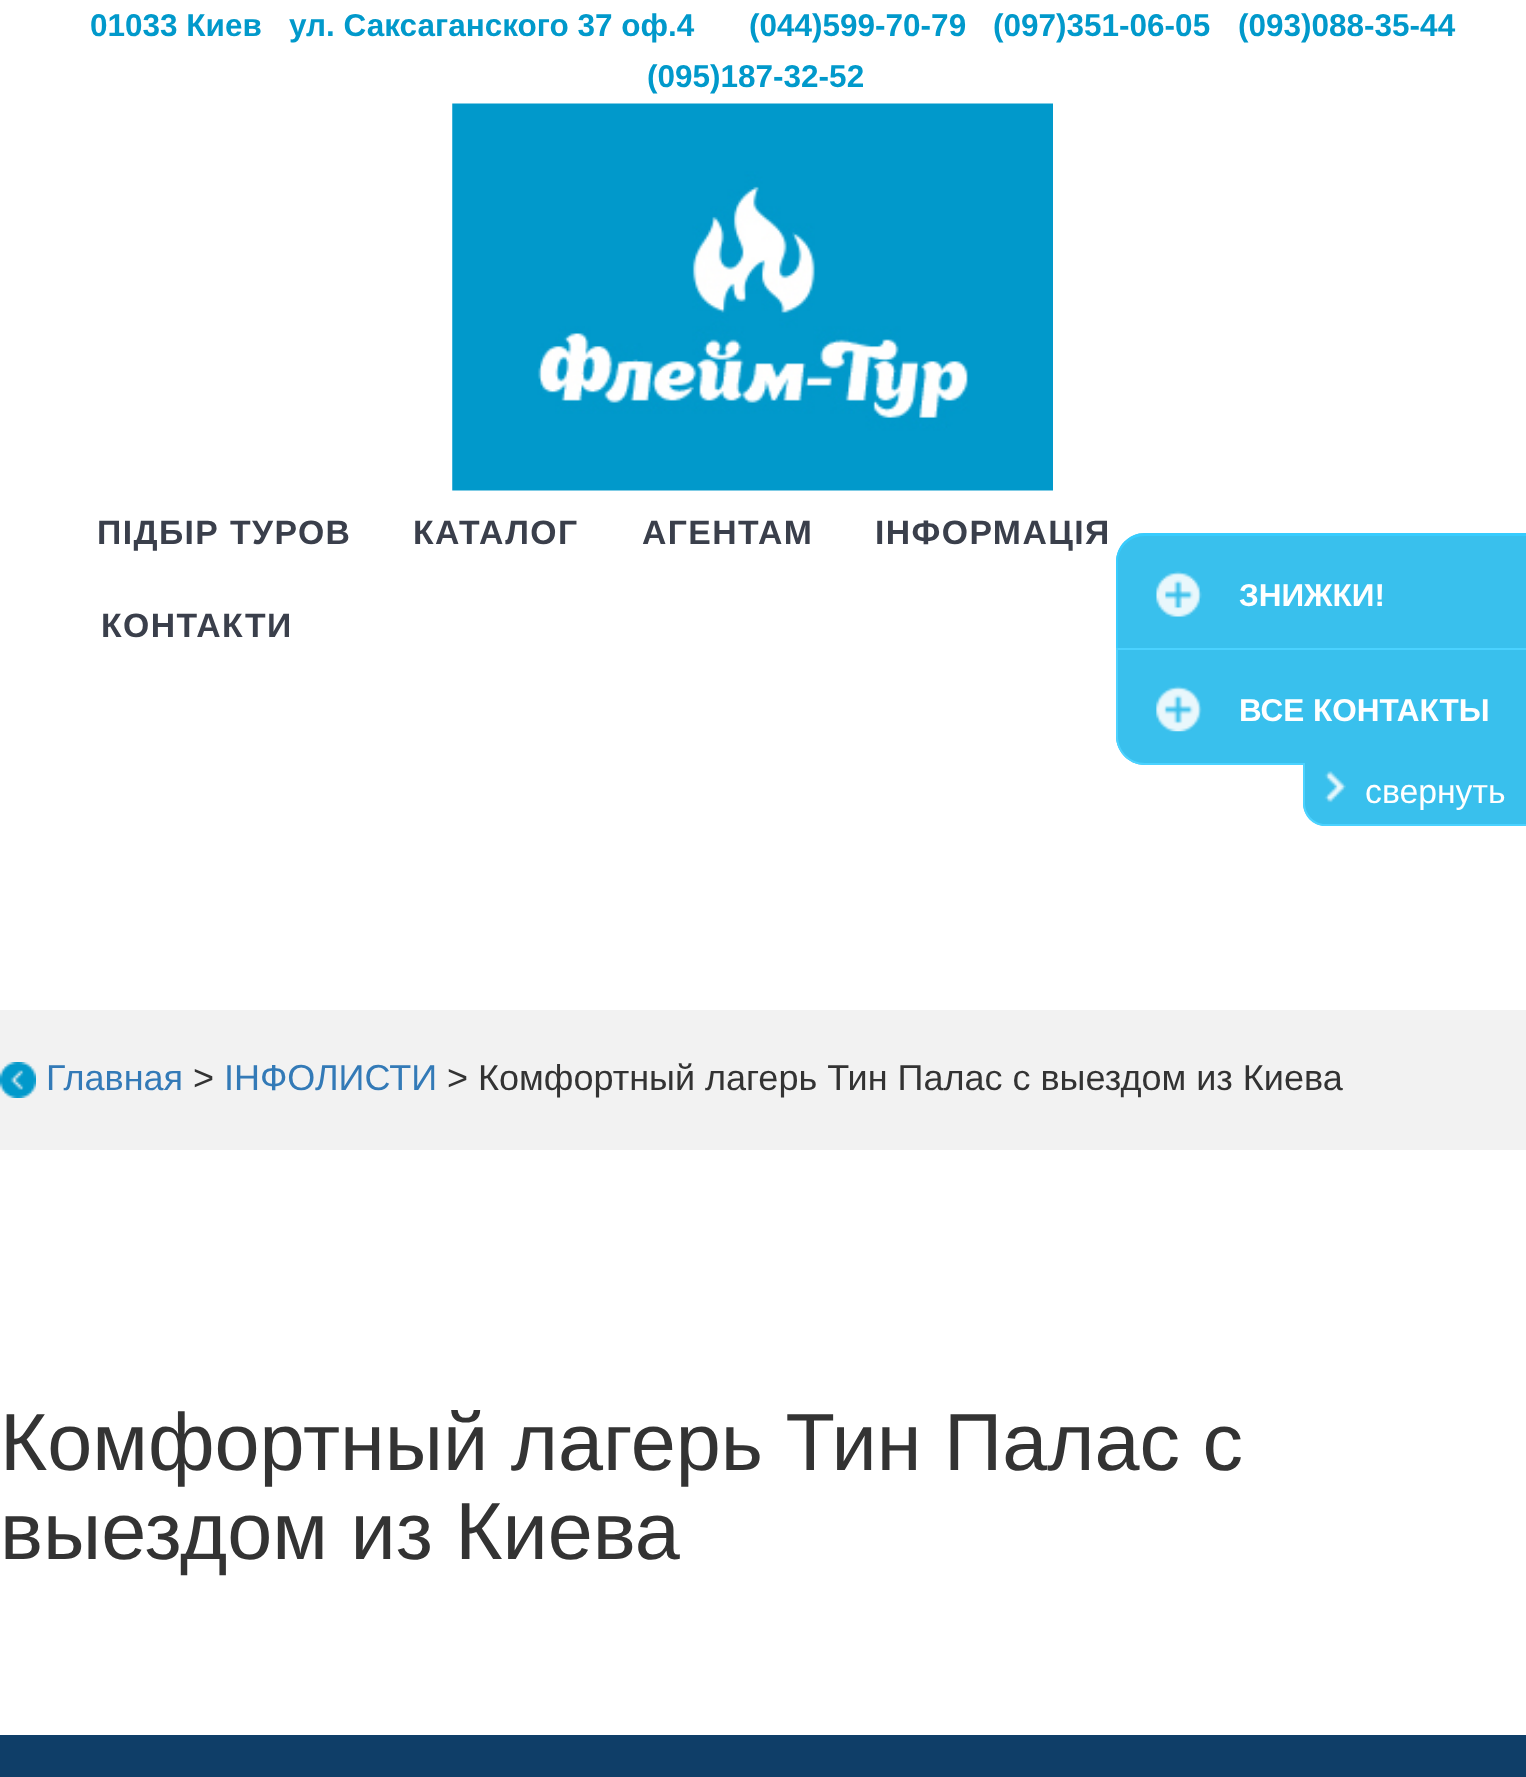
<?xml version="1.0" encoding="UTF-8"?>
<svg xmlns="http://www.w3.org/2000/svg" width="1526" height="1777">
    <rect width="100%" height="100%" fill="#FFFFFF"/>
    <text x="90" y="36" font-family="Liberation Sans" font-size="31.5" font-weight="700" fill="#0199CB">01033 Киев</text>
    <text x="289" y="36" font-family="Liberation Sans" font-size="31.5" font-weight="700" fill="#0199CB">ул. Саксаганского 37 оф.4</text>
    <text x="749" y="36" font-family="Liberation Sans" font-size="31.5" font-weight="700" fill="#0199CB">(044)599-70-79</text>
    <text x="993" y="36" font-family="Liberation Sans" font-size="31.5" font-weight="700" fill="#0199CB">(097)351-06-05</text>
    <text x="1238" y="36" font-family="Liberation Sans" font-size="31.5" font-weight="700" fill="#0199CB">(093)088-35-44</text>
    <text x="647" y="87" font-family="Liberation Sans" font-size="31.5" font-weight="700" fill="#0199CB">(095)187-32-52</text>
    <image x="452" y="103" width="601" height="388" href="img_01.png"/>
    <text x="97" y="544" font-family="Liberation Sans" font-size="33.75" font-weight="700" letter-spacing="1.4" fill="#3A3F4B">ПІДБІР ТУРОВ</text>
    <text x="413" y="544" font-family="Liberation Sans" font-size="33.75" font-weight="700" letter-spacing="1.4" fill="#3A3F4B">КАТАЛОГ</text>
    <text x="642" y="544" font-family="Liberation Sans" font-size="33.75" font-weight="700" letter-spacing="1.4" fill="#3A3F4B">АГЕНТАМ</text>
    <text x="875" y="544" font-family="Liberation Sans" font-size="33.75" font-weight="700" letter-spacing="1.4" fill="#3A3F4B">ІНФОРМАЦІЯ</text>
    <text x="101" y="637" font-family="Liberation Sans" font-size="33.75" font-weight="700" letter-spacing="1.4" fill="#3A3F4B">КОНТАКТИ</text>
    <rect x="0" y="1010" width="1526" height="140" fill="#F2F2F2"/>
    <image x="0" y="1062" width="36" height="36" href="img_02.png"/>
    <text x="46" y="1090" font-family="Liberation Sans" font-size="36" fill="#337AB7">Главная</text>
    <text x="193" y="1090" font-family="Liberation Sans" font-size="36" fill="#333333">&gt;</text>
    <text x="224" y="1090" font-family="Liberation Sans" font-size="36" fill="#337AB7">ІНФОЛИСТИ</text>
    <text x="447" y="1090" font-family="Liberation Sans" font-size="36" fill="#333333">&gt; Комфортный лагерь Тин Палас с выездом из Киева</text>
    <text font-family="Liberation Sans" font-size="81" fill="#333333">
        <tspan x="0" y="1470">Комфортный лагерь Тин Палас с</tspan>
        <tspan x="0" y="1559">выездом из Киева</tspan>
    </text>
    <rect x="0" y="1735" width="1526" height="42" fill="#0F3E68"/>
    <path d="M 1145 533 H 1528 V 648 H 1116 V 562 C 1116 546 1129 533 1145 533 Z" fill="#23B9EB" fill-opacity="0.9"/>
    <path d="M 1145 533 H 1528 V 648 H 1116 V 562 C 1116 546 1129 533 1145 533 Z M 1145 536 H 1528 V 648 H 1118 V 562 C 1118 548 1130 536 1145 536 Z" fill="#37CDFF" fill-opacity="0.9" fill-rule="evenodd"/>
    <image x="1156" y="571" width="46" height="46" href="img_03.png"/>
    <text x="1239" y="606" font-family="Liberation Sans" font-size="31.5" font-weight="700" fill="#FFFFFF">ЗНИЖКИ!</text>
    <path d="M 1116 648 H 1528 V 765 H 1145 C 1129 765 1116 752 1116 736 Z" fill="#39C0ED"/>
    <path d="M 1116 648 H 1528 V 765 H 1145 C 1129 765 1116 752 1116 736 Z M 1118 650 H 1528 V 763 H 1145 C 1130 763 1118 751 1118 736 Z" fill="#4BD2FF" fill-rule="evenodd"/>
    <image x="1156" y="685" width="46" height="47" href="img_04.png"/>
    <text x="1239" y="721" font-family="Liberation Sans" font-size="31.5" font-weight="700" fill="#FFFFFF">ВСЕ КОНТАКТЫ</text>
    <path d="M 1303 763 H 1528 V 826 H 1326 C 1313.5 826 1303 815.5 1303 803 Z" fill="#39C0ED"/>
    <image x="1324" y="771" width="22" height="32" href="img_05.png"/>
    <path d="M 1303 763 H 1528 V 826 H 1325 C 1313 826 1303 816 1303 803 Z M 1305 763 H 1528 V 824 H 1325 C 1314 824 1305 814 1305 803 Z" fill="#4BD2FF" fill-rule="evenodd"/>
    <text x="1365" y="803" font-family="Liberation Sans" font-size="33.75" fill="#FFFFFF">свернуть</text>
</svg>
